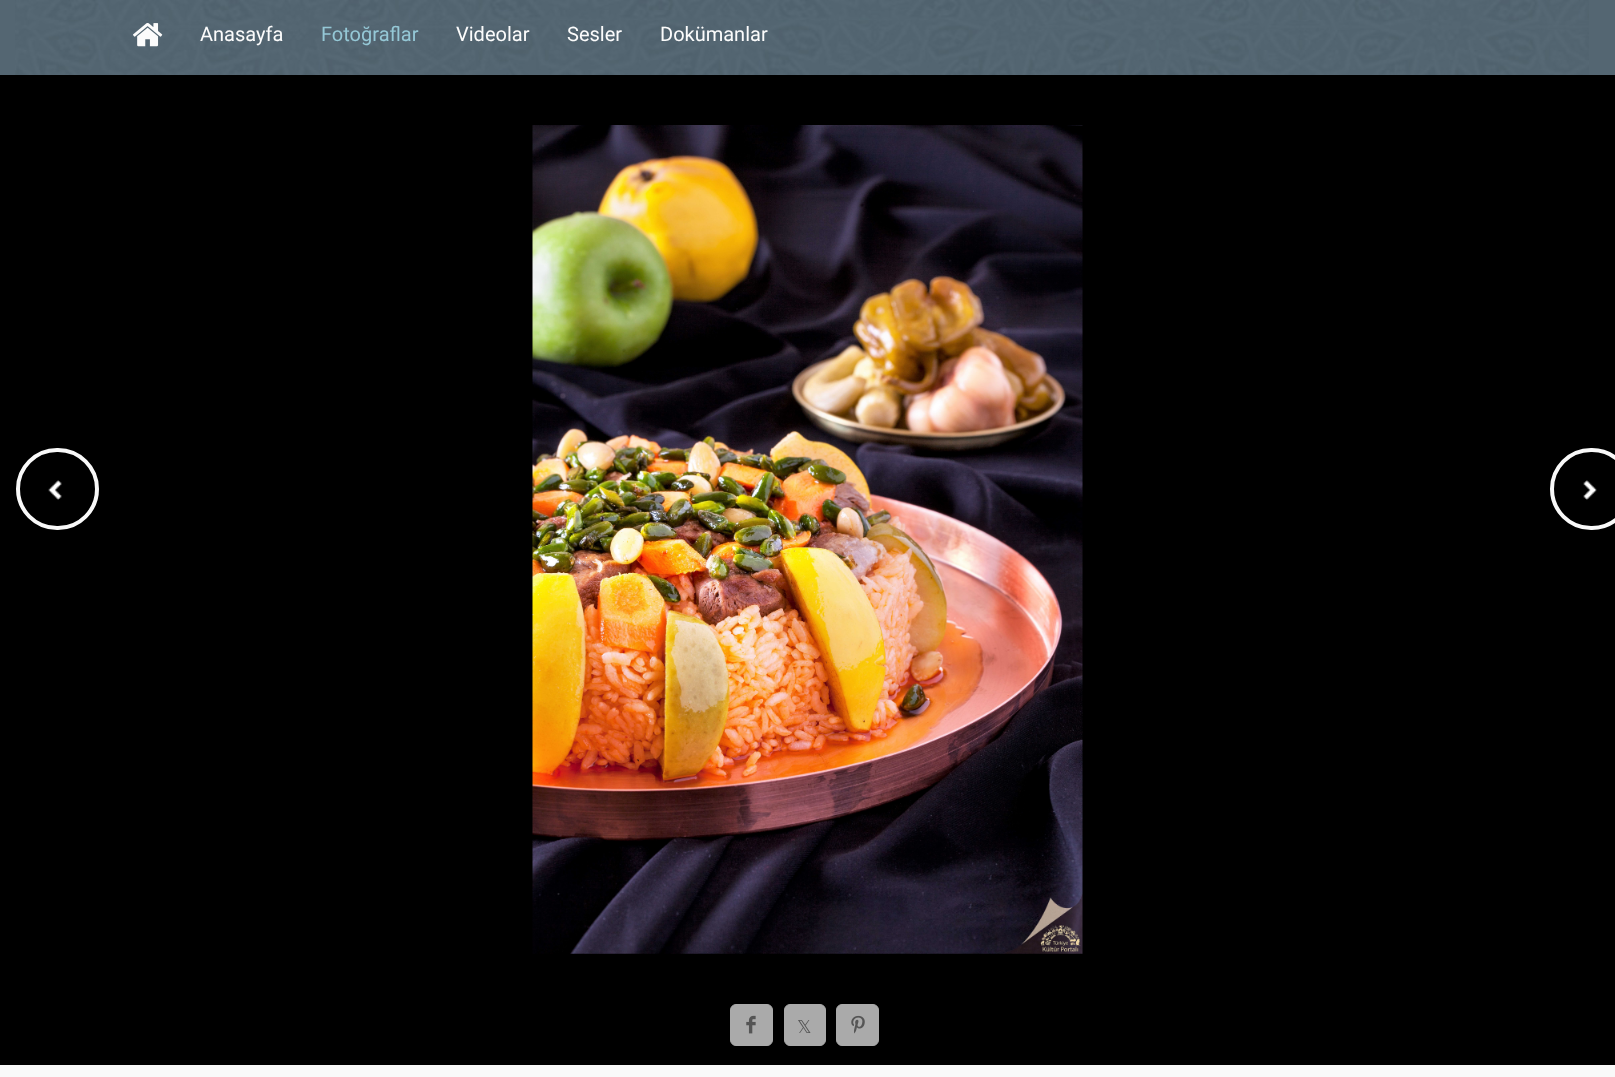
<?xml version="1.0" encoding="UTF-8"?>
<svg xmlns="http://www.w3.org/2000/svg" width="1615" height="1077">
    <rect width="100%" height="100%" fill="#F9F9F9"/>
    <rect x="0" y="0" width="1615" height="75" fill="#546672"/>
    <image x="15" y="0" width="1574" height="75" href="img_01.png"/>
    <image x="133" y="23" width="30" height="24" href="img_02.png"/>
    <text x="200" y="41" font-family="Roboto" font-size="20" fill="#FCFCFC">Anasayfa</text>
    <text x="321" y="41" font-family="Roboto" font-size="20" fill="#95C8D6">Fotoğraflar</text>
    <text x="456" y="41" font-family="Roboto" font-size="20" fill="#FCFCFC">Videolar</text>
    <text x="567" y="41" font-family="Roboto" font-size="20" fill="#FCFCFC">Sesler</text>
    <text x="660" y="41" font-family="Roboto" font-size="20" fill="#FCFCFC">Dokümanlar</text>
    <rect x="0" y="75" width="1615" height="990" fill="#000000"/>
    <image x="48" y="480" width="14" height="20" href="img_03.png"/>
    <rect x="18" y="450" width="79" height="78" rx="39" fill="none" stroke="#F9F9F9" stroke-width="4"/>
    <image x="532" y="125" width="551" height="829" href="img_04.png"/>
    <image x="1583" y="480" width="14" height="20" href="img_05.png"/>
    <rect x="1552" y="450" width="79" height="78" rx="39" fill="none" stroke="#F9F9F9" stroke-width="4"/>
    <rect x="730.5" y="1004.5" width="42" height="41" rx="5.5" fill="#AAAAAA" stroke="#AAAAAA"/>
    <image x="746" y="1015" width="10" height="19" href="img_06.png"/>
    <rect x="784.5" y="1004.5" width="41" height="41" rx="5.5" fill="#AAAAAA" stroke="#AAAAAA"/>
    <text x="797" y="1033" font-family="DejaVu Sans" font-size="18" fill="#555555">𝕏</text>
    <rect x="836.5" y="1004.5" width="42" height="41" rx="5.5" fill="#AAAAAA" stroke="#AAAAAA"/>
    <image x="851" y="1015" width="14" height="19" href="img_07.png"/>
</svg>
